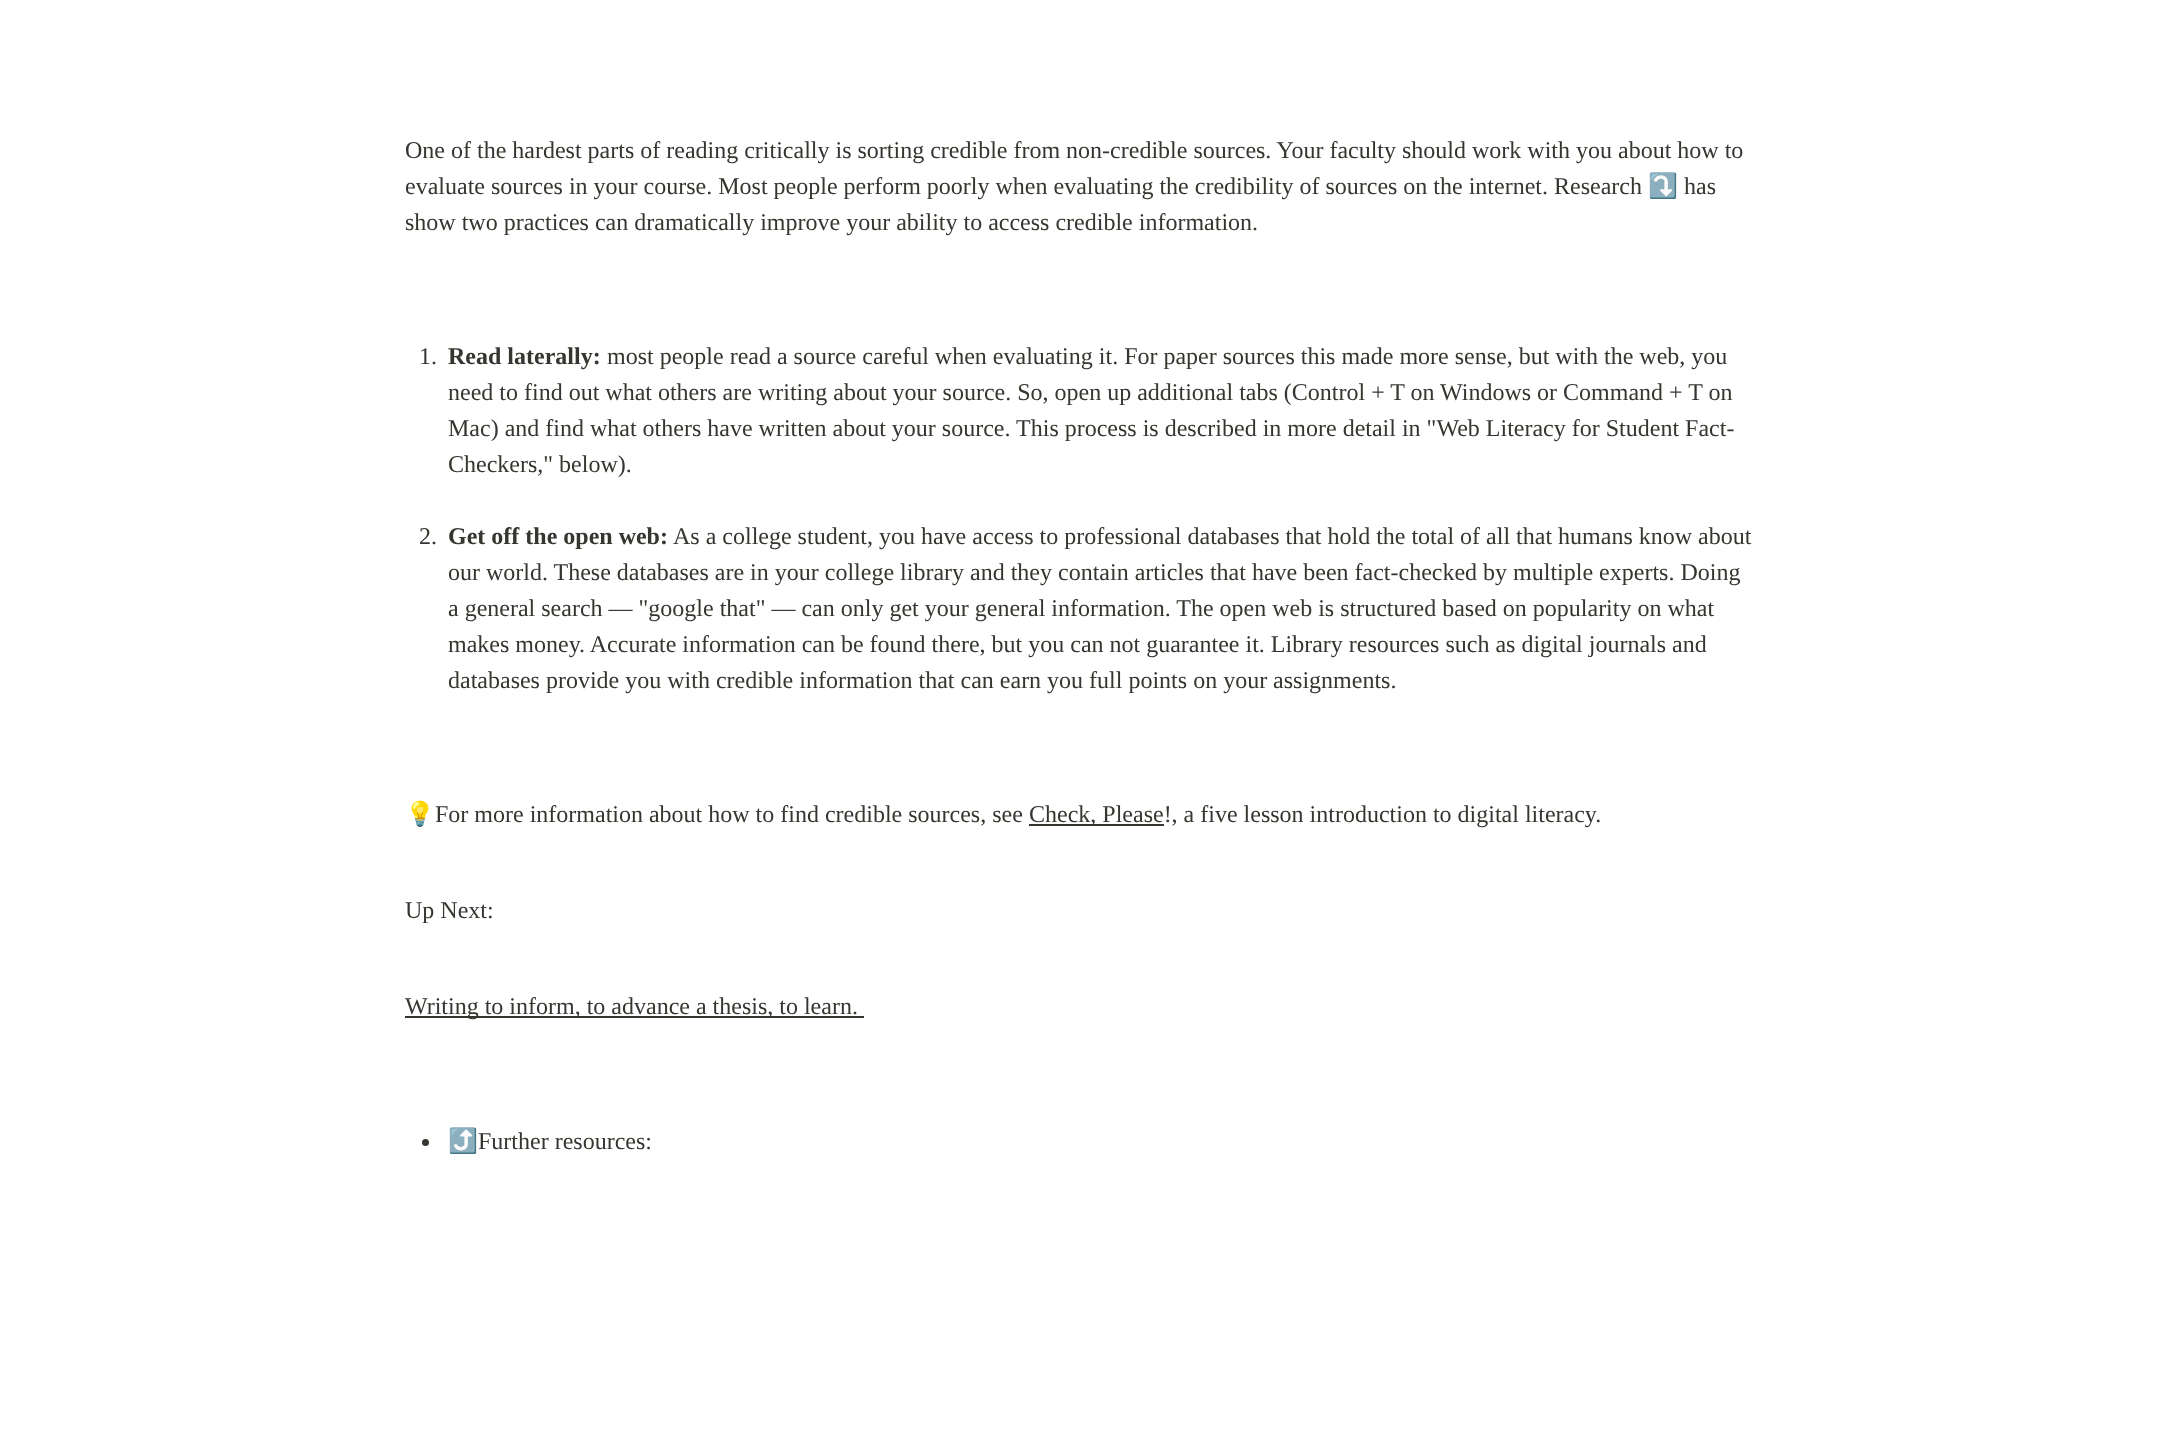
<?xml version="1.0" encoding="UTF-8"?>
<svg xmlns="http://www.w3.org/2000/svg" width="2159" height="1440">
    <rect width="100%" height="100%" fill="#FFFFFF"/>
    <text font-family="Liberation Serif" font-size="24" fill="#37352F">
        <tspan x="405" y="158">One of the hardest parts of reading critically is sorting credible from non-credible sources. Your faculty should work with you about how to</tspan>
        <tspan x="405" y="194">evaluate sources in your course. Most people perform poorly when evaluating the credibility of sources on the internet. Research</tspan>
    </text>
    <text x="1648" y="194" font-family="Noto Color Emoji" font-size="24" fill="#37352F">⤵️</text>
    <text x="1684" y="194" font-family="Liberation Serif" font-size="24" fill="#37352F">has</text>
    <text x="405" y="230" font-family="Liberation Serif" font-size="24" fill="#37352F">show two practices can dramatically improve your ability to access credible information.</text>
    <text x="419" y="364" font-family="Liberation Serif" font-size="24" fill="#37352F">1.</text>
    <text x="448" y="364" font-family="Liberation Serif" font-size="24" font-weight="700" fill="#37352F">Read laterally:</text>
    <text x="607" y="364" font-family="Liberation Serif" font-size="24" fill="#37352F">most people read a source careful when evaluating it. For paper sources this made more sense, but with the web, you</text>
    <text font-family="Liberation Serif" font-size="24" fill="#37352F">
        <tspan x="448" y="400">need to find out what others are writing about your source. So, open up additional tabs (Control + T on Windows or Command + T on</tspan>
        <tspan x="448" y="436">Mac) and find what others have written about your source. This process is described in more detail in "Web Literacy for Student Fact-</tspan>
        <tspan x="448" y="472">Checkers," below).</tspan>
    </text>
    <text x="419" y="544" font-family="Liberation Serif" font-size="24" fill="#37352F">2.</text>
    <text x="448" y="544" font-family="Liberation Serif" font-size="24" font-weight="700" fill="#37352F">Get off the open web:</text>
    <text x="673" y="544" font-family="Liberation Serif" font-size="24" fill="#37352F">As a college student, you have access to professional databases that hold the total of all that humans know about</text>
    <text font-family="Liberation Serif" font-size="24" fill="#37352F">
        <tspan x="448" y="580">our world. These databases are in your college library and they contain articles that have been fact-checked by multiple experts. Doing</tspan>
        <tspan x="448" y="616">a general search — "google that" — can only get your general information. The open web is structured based on popularity on what</tspan>
        <tspan x="448" y="652">makes money. Accurate information can be found there, but you can not guarantee it. Library resources such as digital journals and</tspan>
        <tspan x="448" y="688">databases provide you with credible information that can earn you full points on your assignments.</tspan>
    </text>
    <text x="405" y="822" font-family="Noto Color Emoji" font-size="24" fill="#37352F">💡</text>
    <text x="435" y="822" font-family="Liberation Serif" font-size="24" fill="#37352F">For more information about how to find credible sources, see</text>
    <rect x="1029" y="824" width="135" height="2" fill="#37352F"/>
    <text x="1029" y="822" font-family="Liberation Serif" font-size="24" fill="#37352F">Check, Please!, a five lesson introduction to digital literacy.</text>
    <text x="405" y="918" font-family="Liberation Serif" font-size="24" fill="#37352F">Up Next:</text>
    <rect x="405" y="1016" width="459" height="2" fill="#37352F"/>
    <text x="405" y="1014" font-family="Liberation Serif" font-size="24" fill="#37352F">Writing to inform, to advance a thesis, to learn.</text>
    <circle cx="425.5" cy="1142.5" r="3.5" fill="#37352F"/>
    <text x="448" y="1149" font-family="Noto Color Emoji" font-size="24" fill="#37352F">⤴️</text>
    <text x="478" y="1149" font-family="Liberation Serif" font-size="24" fill="#37352F">Further resources:</text>
</svg>
